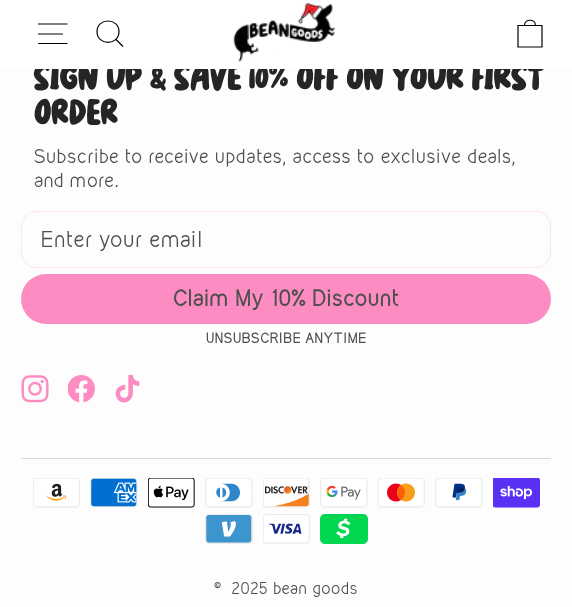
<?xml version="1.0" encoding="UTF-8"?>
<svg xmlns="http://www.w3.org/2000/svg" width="572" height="607">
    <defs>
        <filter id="blur1" x="-50%" y="-200%" width="200%" height="500%"><feGaussianBlur stdDeviation="0.5"/></filter>
    </defs>
    <rect width="100%" height="100%" fill="#FDFDFD"/>
    <rect x="0" y="0" width="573" height="69" fill="#000000" fill-opacity="0.2" filter="url(#blur1)"/>
    <text x="34" y="88" font-family="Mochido" font-size="35" fill="#252525">SIGN UP &amp; SAVE 10% OFF ON YOUR FIRST</text>
    <rect x="0" y="0" width="572" height="69" fill="#FFFFFF"/>
    <path d="M 38 24 H 67.5 M 38 34 H 63 M 38 43.5 H 67.5" fill="none" stroke="#000000" stroke-width="1.2"/>
    <path d="M 119 31.5 C 119 46 97 46 97 31.5 C 97 17.5 119 17.5 119 31.5 Z M 123 46.5 L 116 39.5" fill="none" stroke="#000000" stroke-width="1.2"/>
    <image x="233" y="3" width="103" height="59" href="img_01.png"/>
    <path d="M 518 25.5 H 542 V 47 H 518 Z M 524.5 25.5 C 524.5 18.5 535.5 18.5 535.5 25.5" fill="none" stroke="#000000" stroke-width="1.2"/>
    <text x="34" y="123" font-family="Mochido" font-size="35" fill="#252525">ORDER</text>
    <text font-family="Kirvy" font-size="17.5" letter-spacing="0.45" fill="#4F4F4F">
        <tspan x="34" y="163">Subscribe to receive updates, access to exclusive deals,</tspan>
        <tspan x="34" y="187">and more.</tspan>
    </text>
    <rect x="21.5" y="211.5" width="529" height="56" rx="14.5" fill="none" stroke="#FCE4F0"/>
    <text x="41" y="247" font-family="Kirvy" font-size="20" letter-spacing="0.5" fill="#4F4F4F">Enter your email</text>
    <rect x="21" y="274" width="530" height="50" rx="25" fill="#FC8CC1"/>
    <text x="173" y="306" font-family="Kirvy" font-size="20" font-weight="700" letter-spacing="0.45" fill="#4F4F4F">Claim My 10% Discount</text>
    <text x="206" y="343" font-family="Kirvy" font-size="12.5" font-weight="700" letter-spacing="0.45" fill="#4F4F4F">UNSUBSCRIBE ANYTIME</text>
    <image x="21" y="375" width="28" height="28" href="img_02.png"/>
    <image x="68" y="375" width="27" height="28" href="img_03.png"/>
    <image x="115" y="375" width="25" height="28" href="img_04.png"/>
    <rect x="21" y="458" width="530" height="1" fill="#D7D7D7"/>
    <image x="33" y="478" width="47" height="30" href="img_05.png"/>
    <image x="90" y="478" width="48" height="30" href="img_06.png"/>
    <image x="148" y="478" width="47" height="30" href="img_07.png"/>
    <image x="205" y="478" width="48" height="30" href="img_08.png"/>
    <image x="263" y="478" width="47" height="30" href="img_09.png"/>
    <image x="320" y="478" width="48" height="30" href="img_10.png"/>
    <image x="378" y="478" width="47" height="30" href="img_11.png"/>
    <image x="435" y="478" width="48" height="30" href="img_12.png"/>
    <image x="493" y="478" width="47" height="30" href="img_13.png"/>
    <image x="205" y="514" width="48" height="30" href="img_14.png"/>
    <image x="263" y="514" width="47" height="30" href="img_15.png"/>
    <image x="320" y="514" width="48" height="30" href="img_16.png"/>
    <text x="214" y="594" font-family="Kirvy" font-size="15" letter-spacing="0.45" fill="#4F4F4F">© 2025 bean goods</text>
</svg>
